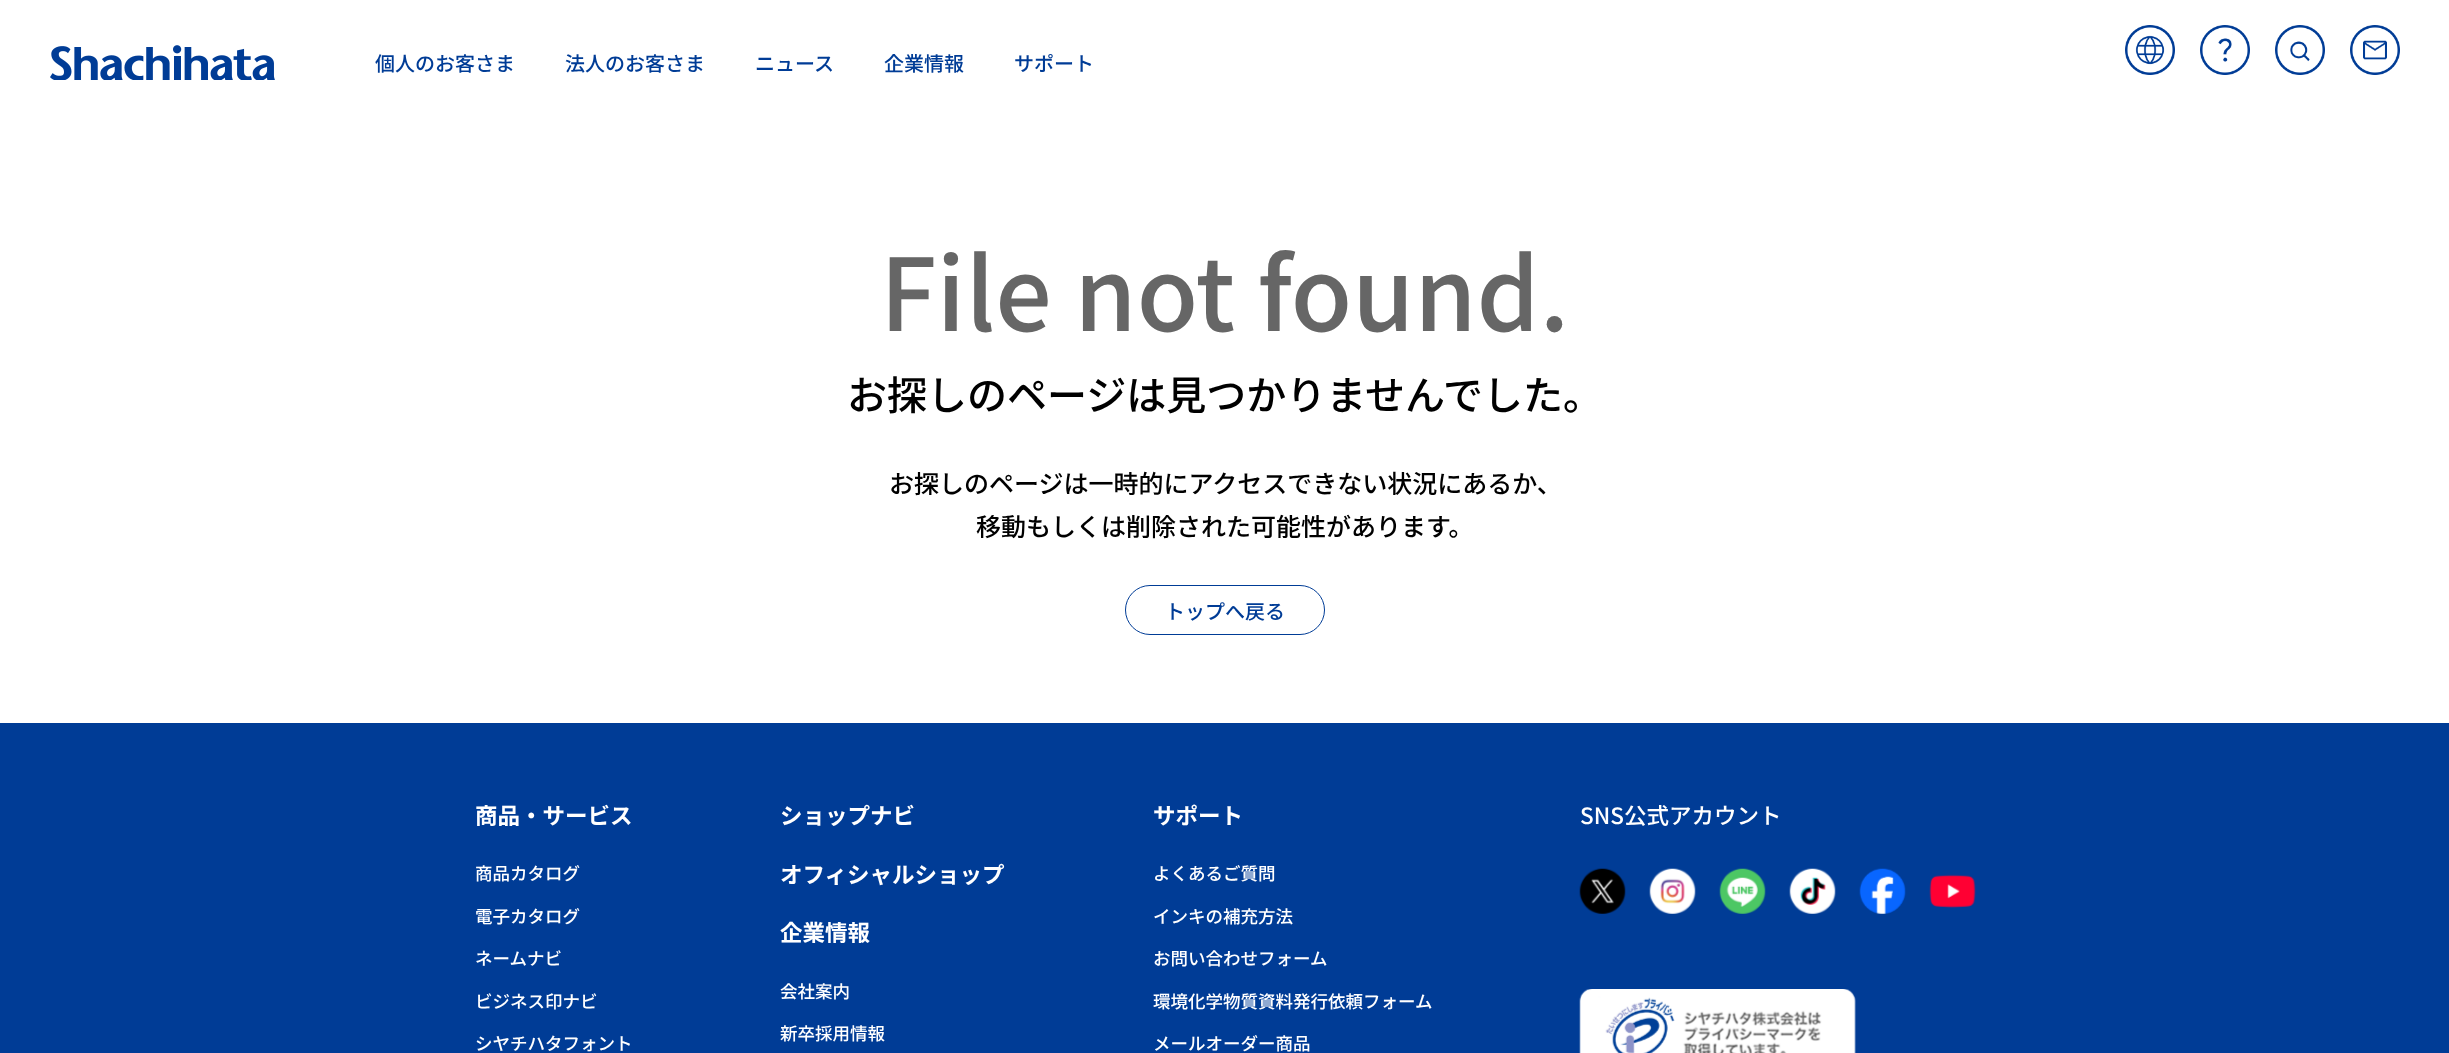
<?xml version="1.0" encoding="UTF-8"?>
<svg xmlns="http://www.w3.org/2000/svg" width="2449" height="1053">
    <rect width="100%" height="100%" fill="#FFFFFF"/>
    <image x="50" y="45" width="225" height="35" href="img_01.png"/>
    <text x="375" y="71" font-family="Noto Sans JP" font-size="20" font-weight="500" fill="#003C96">個人のお客さま</text>
    <text x="565" y="71" font-family="Noto Sans JP" font-size="20" font-weight="500" fill="#003C96">法人のお客さま</text>
    <text x="755" y="71" font-family="Noto Sans JP" font-size="20" font-weight="500" fill="#003C96">ニュー</text>
    <text x="814" y="71" font-family="Noto Sans JP" font-size="20" font-weight="500" fill="#003C96">ス</text>
    <text x="884" y="71" font-family="Noto Sans JP" font-size="20" font-weight="500" fill="#003C96">企業情報</text>
    <text x="1014" y="71" font-family="Noto Sans JP" font-size="20" font-weight="500" fill="#003C96">サポート</text>
    <image x="2125" y="25" width="50" height="50" href="img_02.png"/>
    <image x="2200" y="25" width="50" height="50" href="img_03.png"/>
    <image x="2275" y="25" width="50" height="50" href="img_04.png"/>
    <image x="2350" y="25" width="50" height="50" href="img_05.png"/>
    <text x="880" y="331" font-family="Noto Sans JP" font-size="100" font-weight="500" fill="#666666">File not found.</text>
    <text x="847" y="410" font-family="Noto Sans JP" font-size="40" font-weight="500" fill="#000000">お探しのページは見つかりませんでした。</text>
    <text x="889" y="493" font-family="Noto Sans JP" font-size="25" font-weight="500" fill="#000000">お探しのページは一時的にアクセスできない状況にあるか、</text>
    <text x="976" y="536" font-family="Noto Sans JP" font-size="25" font-weight="500" fill="#000000">移動もしくは削除された可能性があります。</text>
    <rect x="1125.5" y="585.5" width="199" height="49" rx="24.5" fill="none" stroke="#003C96"/>
    <text x="1165" y="619" font-family="Noto Sans JP" font-size="20" font-weight="500" fill="#003C96">トップへ戻る</text>
    <rect x="0" y="723" width="2449" height="330" fill="#003C96"/>
    <text x="475" y="824" font-family="Noto Sans JP" font-size="22.5" font-weight="700" fill="#FFFFFF">商品・サービス</text>
    <text x="475" y="880" font-family="Noto Sans JP" font-size="17.5" font-weight="500" fill="#FFFFFF">商品カタログ</text>
    <text x="475" y="923" font-family="Noto Sans JP" font-size="17.5" font-weight="500" fill="#FFFFFF">電子カタログ</text>
    <text x="475" y="965" font-family="Noto Sans JP" font-size="17.5" font-weight="500" fill="#FFFFFF">ネームナビ</text>
    <text x="475" y="1008" font-family="Noto Sans JP" font-size="17.5" font-weight="500" fill="#FFFFFF">ビジネス印ナビ</text>
    <text x="475" y="1050" font-family="Noto Sans JP" font-size="17.5" font-weight="500" fill="#FFFFFF">シヤチハタフォント</text>
    <text x="780" y="824" font-family="Noto Sans JP" font-size="22.5" font-weight="700" fill="#FFFFFF">ショップナビ</text>
    <text x="780" y="883" font-family="Noto Sans JP" font-size="22.5" font-weight="700" fill="#FFFFFF">オフィシャルショップ</text>
    <text x="780" y="941" font-family="Noto Sans JP" font-size="22.5" font-weight="700" fill="#FFFFFF">企業情報</text>
    <text x="780" y="998" font-family="Noto Sans JP" font-size="17.5" font-weight="500" fill="#FFFFFF">会社案内</text>
    <text x="780" y="1040" font-family="Noto Sans JP" font-size="17.5" font-weight="500" fill="#FFFFFF">新卒採用情報</text>
    <text x="1153" y="824" font-family="Noto Sans JP" font-size="22.5" font-weight="700" fill="#FFFFFF">サポート</text>
    <text x="1153" y="880" font-family="Noto Sans JP" font-size="17.5" font-weight="500" fill="#FFFFFF">よくあるご質問</text>
    <text x="1153" y="923" font-family="Noto Sans JP" font-size="17.5" font-weight="500" fill="#FFFFFF">インキの補充方法</text>
    <text x="1153" y="965" font-family="Noto Sans JP" font-size="17.5" font-weight="500" fill="#FFFFFF">お問い合わせフォーム</text>
    <text x="1153" y="1008" font-family="Noto Sans JP" font-size="17.5" font-weight="500" fill="#FFFFFF">環境化学物質資料発行依頼フォーム</text>
    <text x="1153" y="1050" font-family="Noto Sans JP" font-size="17.5" font-weight="500" fill="#FFFFFF">メールオーダー商品</text>
    <text x="1580" y="824" font-family="Noto Sans JP" font-size="22.5" font-weight="500" fill="#FFFFFF">SNS公式アカウント</text>
    <image x="1579" y="868" width="47" height="46" href="img_06.png"/>
    <image x="1649" y="868" width="47" height="46" href="img_07.png"/>
    <image x="1719" y="868" width="47" height="46" href="img_08.png"/>
    <image x="1789" y="868" width="47" height="46" href="img_09.png"/>
    <image x="1859" y="868" width="47" height="46" href="img_10.png"/>
    <image x="1929" y="874" width="47" height="34" href="img_11.png"/>
    <image x="1579" y="989" width="277" height="64" href="img_12.png"/>
</svg>
